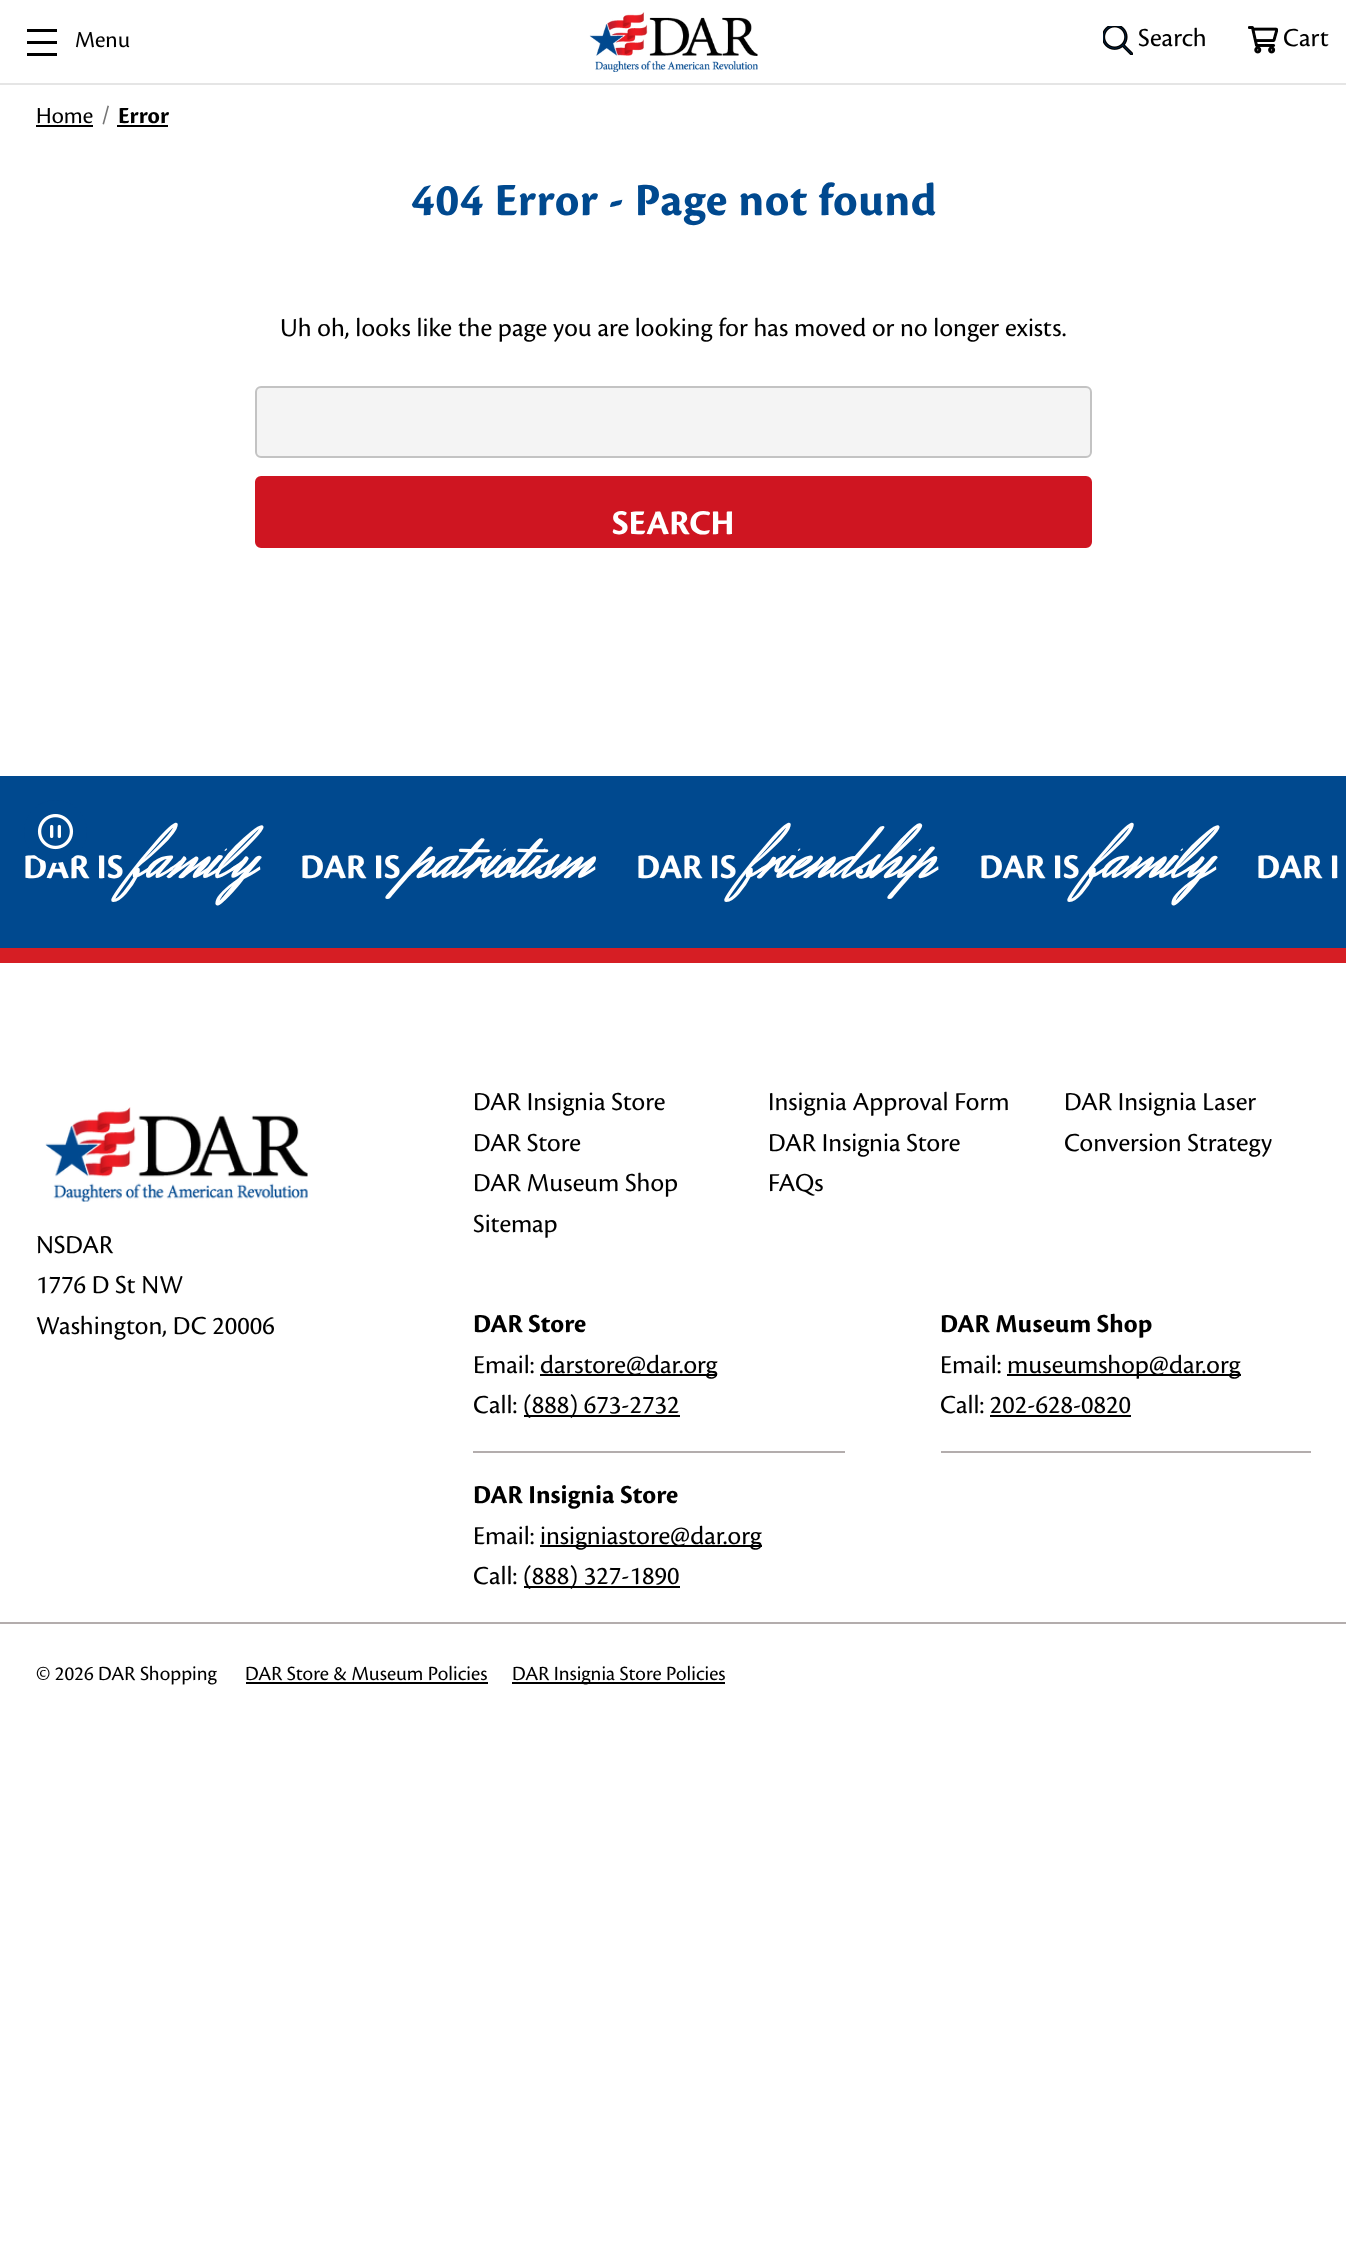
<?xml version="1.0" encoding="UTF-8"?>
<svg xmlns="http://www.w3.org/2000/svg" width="1346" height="2263">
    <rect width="100%" height="100%" fill="#FFFFFF"/>
    <rect x="0" y="83" width="1346" height="2" fill="#E5E5E5"/>
    <rect x="27" y="41" width="30" height="3" fill="#000000"/>
    <rect x="27" y="29" width="30" height="3" fill="#000000"/>
    <rect x="27" y="53" width="30" height="3" fill="#000000"/>
    <text x="75" y="47" font-family="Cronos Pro" font-size="24" fill="#000000">Menu</text>
    <image x="589" y="12" width="169" height="60" href="img_01.png"/>
    <image x="1103" y="26" width="30" height="29" href="img_02.png"/>
    <text x="1138" y="46" font-family="Cronos Pro" font-size="27" fill="#000000">Search</text>
    <image x="1248" y="26" width="30" height="28" href="img_03.png"/>
    <text x="1283" y="46" font-family="Cronos Pro" font-size="27" fill="#000000">Cart</text>
    <text x="36" y="123" font-family="Cronos Pro" font-size="24" fill="#000000">Home</text>
    <rect x="36" y="125" width="57" height="2" fill="#000000"/>
    <path d="M 107.5 105.5 L 109 106 L 104 124.5 L 102.5 124 Z" fill="#757575"/>
    <text x="118" y="123" font-family="Cronos Pro" font-size="24" font-weight="700" fill="#000000">Error</text>
    <rect x="117" y="125" width="51" height="2" fill="#000000"/>
    <text x="411" y="215" font-family="Cronos Pro" font-size="48" font-weight="700" letter-spacing="0.4" fill="#00498F">404 Error - Page not found</text>
    <text x="280" y="336" font-family="Cronos Pro" font-size="27" fill="#000000">Uh oh, looks like the page you are looking for has moved or no longer exists.</text>
    <rect x="256" y="387" width="835" height="70" rx="5" fill="#F4F4F4" stroke="#C3C3C3" stroke-width="2"/>
    <rect x="256" y="477" width="835" height="70" rx="5" fill="#CF1521" stroke="#CF1521" stroke-width="2"/>
    <text x="612" y="534" font-family="Cronos Pro" font-size="36" font-weight="700" fill="#FFFFFF">SEARCH</text>
    <rect x="0" y="776" width="1346" height="172" fill="#00498F"/>
    <rect x="0" y="948" width="1346" height="15" fill="#D61E24"/>
    <text x="23" y="878" font-family="Cronos Pro" font-size="36" font-weight="700" fill="#FFFFFF">DAR IS</text>
    <circle cx="55.5" cy="831.5" r="31.5" fill="#00498F"/>
    <image x="37" y="814" width="37" height="36" href="img_04.png"/>
    <text x="131" y="878" font-family="Herr Von Muellerhoff" font-size="75" font-weight="700" fill="#FFFFFF">family</text>
    <text x="300" y="878" font-family="Cronos Pro" font-size="36" font-weight="700" fill="#FFFFFF">DAR IS</text>
    <text x="408" y="878" font-family="Herr Von Muellerhoff" font-size="75" font-weight="700" fill="#FFFFFF">patriotism</text>
    <text x="636" y="878" font-family="Cronos Pro" font-size="36" font-weight="700" fill="#FFFFFF">DAR IS</text>
    <text x="744" y="878" font-family="Herr Von Muellerhoff" font-size="75" font-weight="700" fill="#FFFFFF">friendship</text>
    <text x="979" y="878" font-family="Cronos Pro" font-size="36" font-weight="700" fill="#FFFFFF">DAR IS</text>
    <text x="1087" y="878" font-family="Herr Von Muellerhoff" font-size="75" font-weight="700" fill="#FFFFFF">family</text>
    <text x="1256" y="878" font-family="Cronos Pro" font-size="36" font-weight="700" fill="#FFFFFF">DAR I</text>
    <rect x="0" y="1622" width="1346" height="2" fill="#B3ADAD"/>
    <text x="473" y="1110" font-family="Cronos Pro" font-size="27" fill="#000000">DAR Insignia Store</text>
    <text x="768" y="1110" font-family="Cronos Pro" font-size="27" fill="#000000">Insignia Approval Form</text>
    <text font-family="Cronos Pro" font-size="27" fill="#000000">
        <tspan x="1064" y="1110">DAR Insignia Laser</tspan>
        <tspan x="1064" y="1151">Conversion Strategy</tspan>
    </text>
    <text x="473" y="1151" font-family="Cronos Pro" font-size="27" fill="#000000">DAR Store</text>
    <text font-family="Cronos Pro" font-size="27" fill="#000000">
        <tspan x="768" y="1151">DAR Insignia Store</tspan>
        <tspan x="768" y="1191">FAQs</tspan>
    </text>
    <text font-family="Cronos Pro" font-size="27" fill="#000000">
        <tspan x="473" y="1191">DAR Museum Shop</tspan>
        <tspan x="473" y="1232">Sitemap</tspan>
    </text>
    <image x="45" y="1107" width="263" height="95" href="img_05.png"/>
    <text font-family="Cronos Pro" font-size="27" fill="#000000">
        <tspan x="36" y="1253">NSDAR</tspan>
        <tspan x="36" y="1293">1776 D St NW</tspan>
        <tspan x="36" y="1334">Washington, DC 20006</tspan>
    </text>
    <rect x="473" y="1451" width="372" height="2" fill="#B3ADAD"/>
    <text x="473" y="1332" font-family="Cronos Pro" font-size="27" font-weight="700" fill="#000000">DAR Store</text>
    <text x="473" y="1373" font-family="Cronos Pro" font-size="27" fill="#000000">Email:</text>
    <rect x="540" y="1374" width="177" height="2" fill="#000000"/>
    <text x="540" y="1373" font-family="Cronos Pro" font-size="27" fill="#000000">darstore@dar.org</text>
    <text x="473" y="1413" font-family="Cronos Pro" font-size="27" fill="#000000">Call:</text>
    <rect x="524" y="1415" width="156" height="2" fill="#000000"/>
    <text x="523" y="1413" font-family="Cronos Pro" font-size="27" fill="#000000">(888) 673-2732</text>
    <rect x="941" y="1451" width="370" height="2" fill="#B3ADAD"/>
    <text x="940" y="1332" font-family="Cronos Pro" font-size="27" font-weight="700" fill="#000000">DAR Museum Shop</text>
    <text x="940" y="1373" font-family="Cronos Pro" font-size="27" fill="#000000">Email:</text>
    <rect x="1007" y="1374" width="234" height="2" fill="#000000"/>
    <text x="1007" y="1373" font-family="Cronos Pro" font-size="27" fill="#000000">museumshop@dar.org</text>
    <text x="940" y="1413" font-family="Cronos Pro" font-size="27" fill="#000000">Call: 202-628-0820</text>
    <rect x="990" y="1415" width="141" height="2" fill="#000000"/>
    <text x="473" y="1503" font-family="Cronos Pro" font-size="27" font-weight="700" fill="#000000">DAR Insignia Store</text>
    <text x="473" y="1544" font-family="Cronos Pro" font-size="27" fill="#000000">Email:</text>
    <rect x="540" y="1545" width="222" height="2" fill="#000000"/>
    <text x="540" y="1544" font-family="Cronos Pro" font-size="27" fill="#000000">insigniastore@dar.org</text>
    <text x="473" y="1584" font-family="Cronos Pro" font-size="27" fill="#000000">Call:</text>
    <rect x="524" y="1586" width="156" height="2" fill="#000000"/>
    <text x="523" y="1584" font-family="Cronos Pro" font-size="27" fill="#000000">(888) 327-1890</text>
    <text x="36" y="1680" font-family="Cronos Pro" font-size="21" fill="#000000">© 2026 DAR Shopping</text>
    <text x="245" y="1680" font-family="Cronos Pro" font-size="21" fill="#000000">DAR Store &amp; Museum Policies</text>
    <rect x="246" y="1682" width="242" height="2" fill="#000000"/>
    <rect x="512" y="1682" width="213" height="2" fill="#000000"/>
    <text x="512" y="1680" font-family="Cronos Pro" font-size="21" fill="#000000">DAR Insignia Store Policies</text>
</svg>
